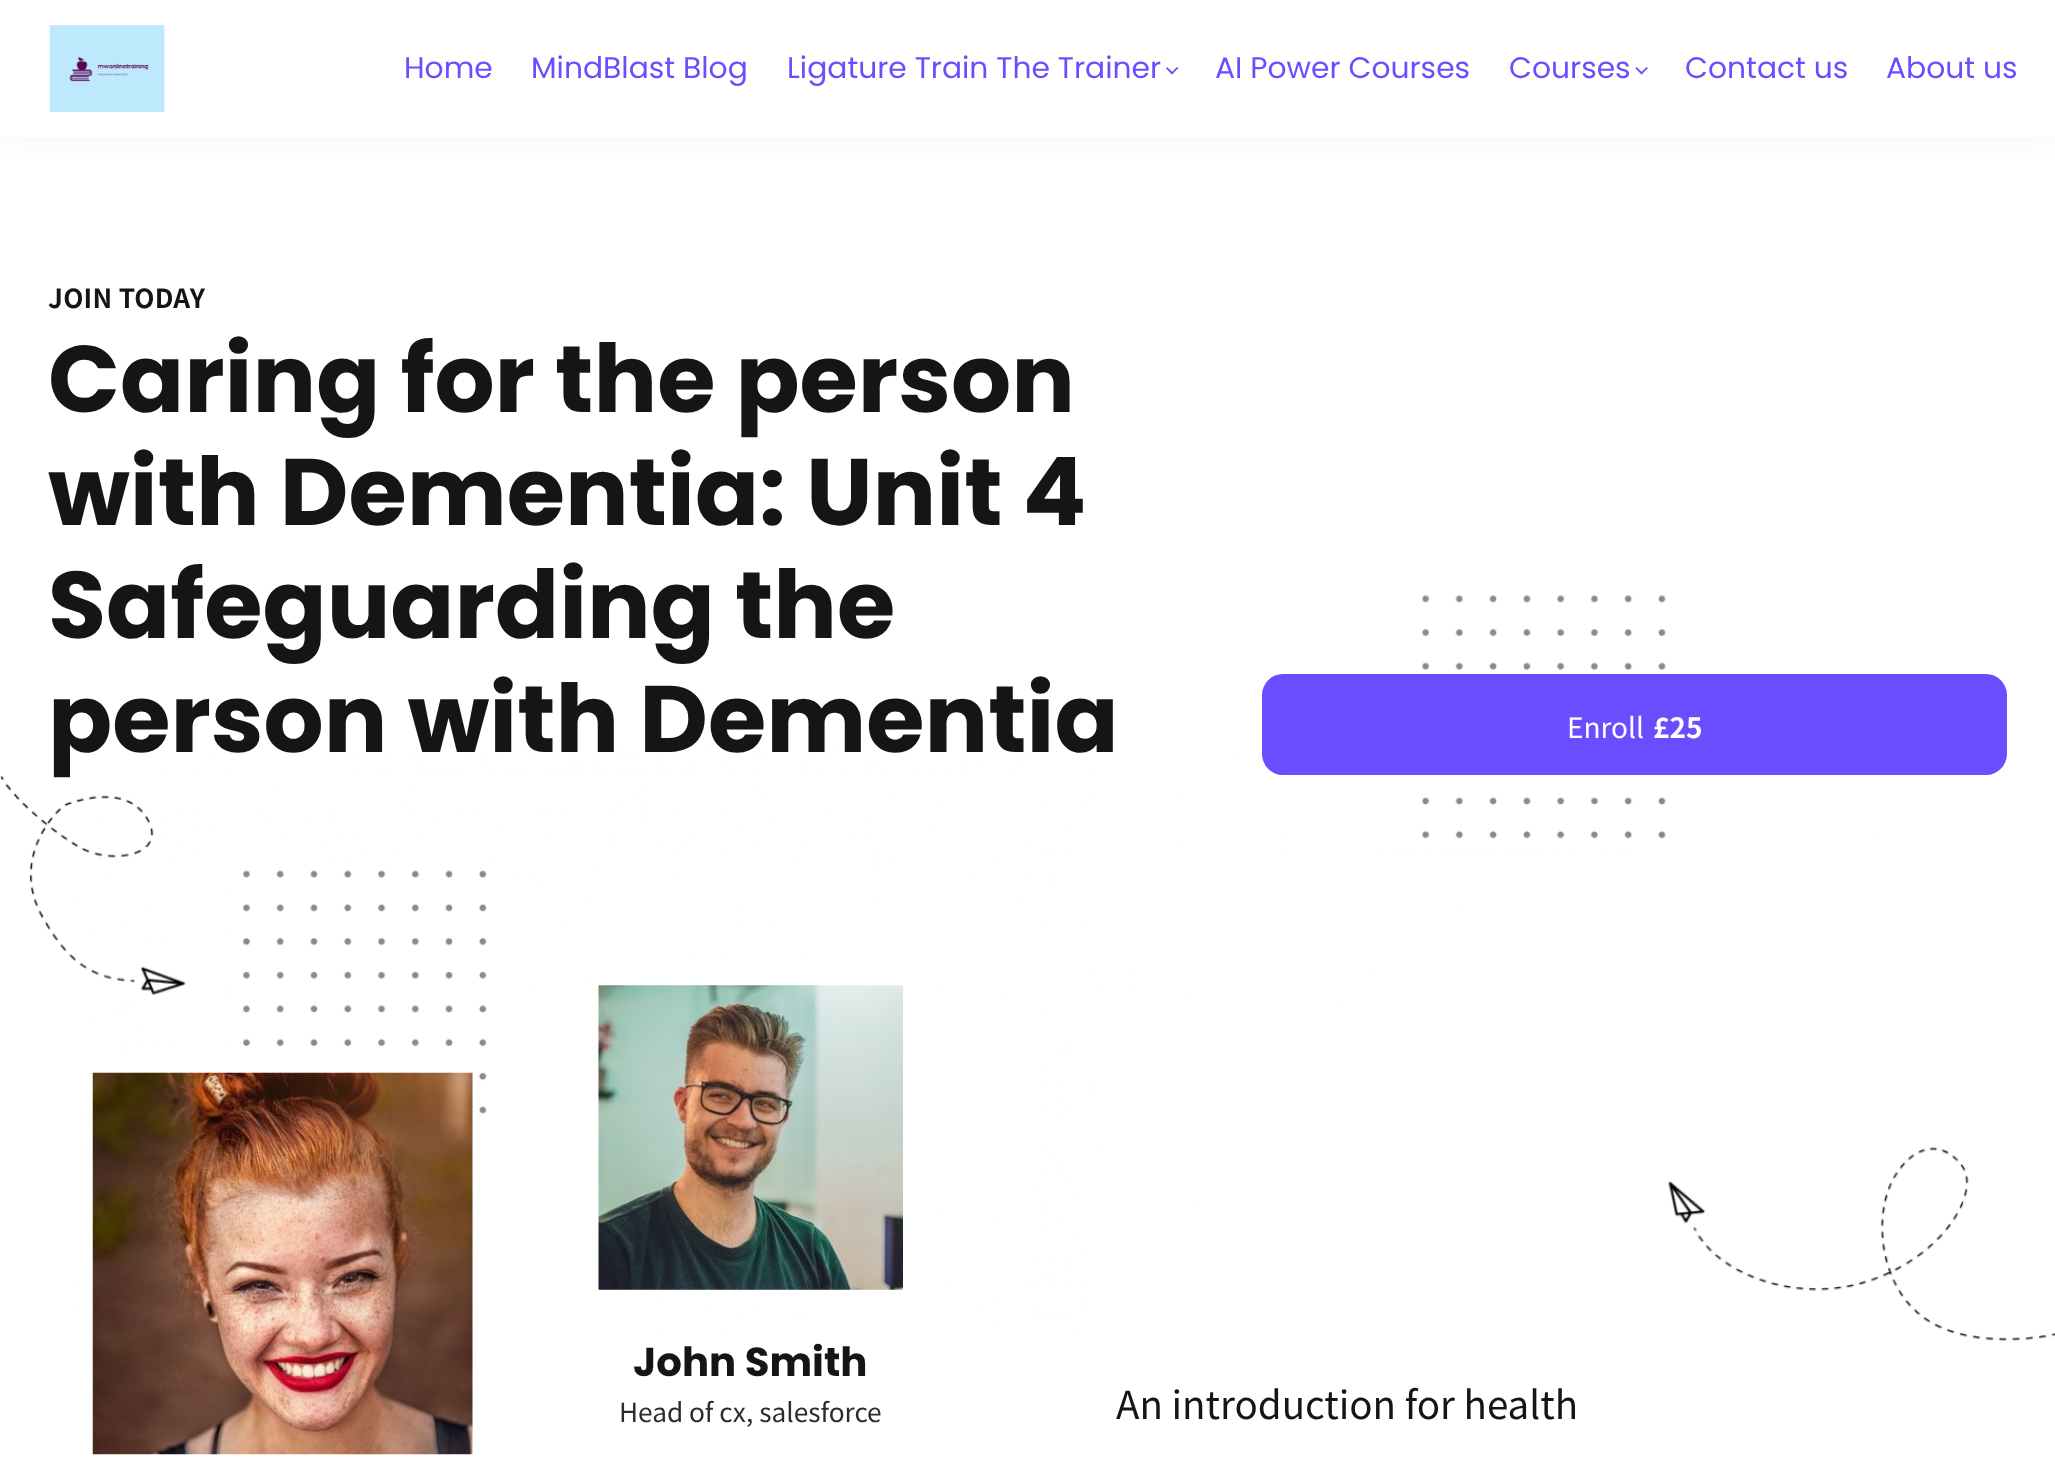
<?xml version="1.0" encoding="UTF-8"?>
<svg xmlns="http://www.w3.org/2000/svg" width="2055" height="1461">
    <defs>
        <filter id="blur1" x="-50%" y="-200%" width="200%" height="500%"><feGaussianBlur stdDeviation="13"/></filter>
    </defs>
    <rect width="100%" height="100%" fill="#FFFFFF"/>
    <rect x="0" y="0" width="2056" height="137" fill="#000000" fill-opacity="0.05" filter="url(#blur1)"/>
    <rect x="0" y="0" width="2055" height="137" fill="#FFFFFF"/>
    <image x="49" y="25" width="116" height="87" href="img_01.png"/>
    <text x="404" y="78" font-family="Poppins" font-size="29.75" fill="#694EFF">Home</text>
    <text x="531" y="78" font-family="Poppins" font-size="29.75" fill="#694EFF">MindBlast Blog</text>
    <text x="787" y="78" font-family="Poppins" font-size="29.75" fill="#694EFF">Ligature Train The Trainer</text>
    <path d="M 1178.5 68 L 1172 74.5 L 1171 73 L 1177 67 Z" fill="#694EFF"/>
    <path d="M 1173.5 73 L 1172 74.5 L 1166 68.5 L 1167 67 Z" fill="#694EFF"/>
    <text x="1215" y="78" font-family="Poppins" font-size="29.75" fill="#694EFF">AI Power Courses</text>
    <text x="1509" y="78" font-family="Poppins" font-size="29.75" fill="#694EFF">Courses</text>
    <path d="M 1648 68 L 1641.5 74.5 L 1640.5 73 L 1646.5 67 Z" fill="#694EFF"/>
    <path d="M 1643 73 L 1641.5 74.5 L 1635.5 68.5 L 1636.5 67 Z" fill="#694EFF"/>
    <text x="1685" y="78" font-family="Poppins" font-size="29.75" fill="#694EFF">Contact us</text>
    <text x="1886" y="78" font-family="Poppins" font-size="29.75" fill="#694EFF">About us</text>
    <image x="0" y="595" width="2055" height="747" href="img_02.png"/>
    <text x="48" y="308" font-family="Noto Sans JP" font-size="26.25" font-weight="700" letter-spacing="0.25" fill="#151515">JOIN TODAY</text>
    <text font-family="Poppins" font-size="94.5" font-weight="700" fill="#151515">
        <tspan x="48" y="412">Caring for the person</tspan>
        <tspan x="48" y="525">with Dementia: Unit 4</tspan>
        <tspan x="48" y="638">Safeguarding the</tspan>
        <tspan x="48" y="752">person with Dementia</tspan>
    </text>
    <rect x="1262" y="674" width="745" height="101" rx="21" fill="#694EFF"/>
    <text x="1567" y="738" font-family="Noto Sans JP" font-size="28" fill="#FFFFFF">Enroll</text>
    <text x="1653" y="738" font-family="Noto Sans JP" font-size="28" font-weight="700" fill="#FFFFFF">£25</text>
    <image x="92" y="1072" width="381" height="383" href="img_03.png"/>
    <image x="598" y="985" width="305" height="305" href="img_04.png"/>
    <text x="633" y="1376" font-family="Poppins" font-size="40.25" font-weight="700" fill="#151515">John Smith</text>
    <text x="619" y="1422" font-family="Noto Sans JP" font-size="26.25" fill="#2C2C2C">Head of cx, salesforce</text>
    <text x="1116" y="1419" font-family="Noto Sans JP" font-size="38.5" fill="#151515">An introduction for health</text>
</svg>
